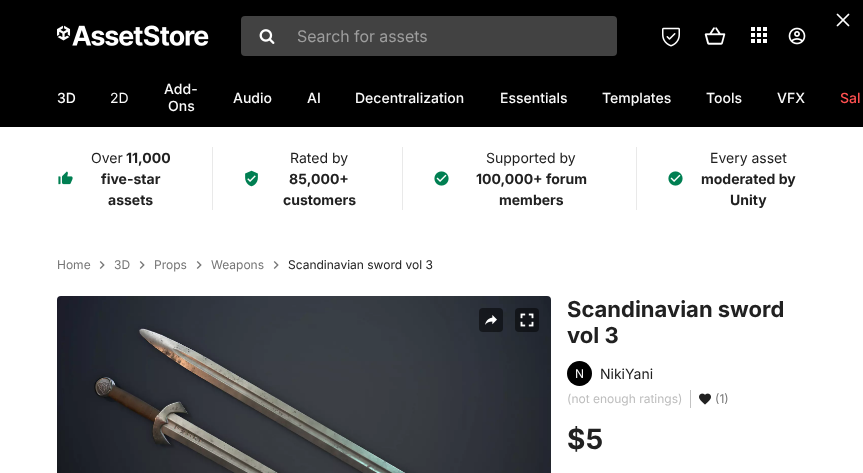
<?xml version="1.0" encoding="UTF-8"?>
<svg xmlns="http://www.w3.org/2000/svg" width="863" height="473">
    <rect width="100%" height="100%" fill="#FFFFFF"/>
    <rect x="0" y="0" width="863" height="127" fill="#000000"/>
    <image x="836" y="13" width="14" height="14" href="img_01.png"/>
    <image x="57" y="25" width="152" height="21" href="img_02.png"/>
    <rect x="241" y="16" width="376" height="40" rx="4" fill="#424242"/>
    <image x="259" y="29" width="16" height="15" href="img_03.png"/>
    <text x="297" y="42" font-family="'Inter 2'" font-size="16" fill="#9E9E9E">Search for assets</text>
    <image x="662" y="27" width="18" height="20" href="img_04.png"/>
    <image x="704" y="27" width="22" height="18" href="img_05.png"/>
    <image x="751" y="27" width="16" height="16" href="img_06.png"/>
    <image x="788" y="27" width="18" height="18" href="img_07.png"/>
    <text x="57" y="103" font-family="Inter" font-size="14" font-weight="500" fill="#FAFAFA">3D</text>
    <text x="110" y="103" font-family="Inter" font-size="14" fill="#FAFAFA">2D</text>
    <text x="164" y="94" font-family="Inter" font-size="14" font-weight="500" fill="#FAFAFA">Add-</text>
    <text x="168" y="111" font-family="Inter" font-size="14" font-weight="500" fill="#FAFAFA">Ons</text>
    <text x="233" y="103" font-family="Inter" font-size="14" font-weight="500" fill="#FAFAFA">Audio</text>
    <text x="307" y="103" font-family="Inter" font-size="14" font-weight="500" fill="#FAFAFA">AI</text>
    <text x="355" y="103" font-family="Inter" font-size="14" font-weight="500" fill="#FAFAFA">Decentralization</text>
    <text x="500" y="103" font-family="Inter" font-size="14" font-weight="500" fill="#FAFAFA">Essentials</text>
    <text x="602" y="103" font-family="Inter" font-size="14" font-weight="500" fill="#FAFAFA">Templates</text>
    <text x="706" y="103" font-family="Inter" font-size="14" font-weight="500" fill="#FAFAFA">Tools</text>
    <text x="777" y="103" font-family="Inter" font-size="14" font-weight="500" fill="#FAFAFA">VFX</text>
    <text x="840" y="103" font-family="Inter" font-size="14" font-weight="500" fill="#FF5050">Sal</text>
    <image x="58" y="171" width="15" height="14" href="img_08.png"/>
    <text x="91" y="163" font-family="Inter" font-size="14" fill="#212121">Over</text>
    <text x="126" y="163" font-family="Inter" font-size="14" font-weight="700" fill="#212121">11,000</text>
    <text x="101" y="184" font-family="Inter" font-size="14" font-weight="700" fill="#212121">five-star</text>
    <text x="108" y="205" font-family="Inter" font-size="14" font-weight="700" fill="#212121">assets</text>
    <rect x="402" y="147" width="1" height="63" fill="#E9E9E9"/>
    <rect x="212" y="147" width="1" height="63" fill="#E9E9E9"/>
    <image x="245" y="170" width="13" height="17" href="img_09.png"/>
    <text x="290" y="163" font-family="Inter" font-size="14" fill="#212121">Rated by</text>
    <text x="289" y="184" font-family="Inter" font-size="14" font-weight="700" fill="#212121">85,000+</text>
    <text x="283" y="205" font-family="Inter" font-size="14" font-weight="700" fill="#212121">customers</text>
    <rect x="636" y="147" width="1" height="63" fill="#E9E9E9"/>
    <image x="434" y="171" width="15" height="15" href="img_10.png"/>
    <text x="486" y="163" font-family="Inter" font-size="14" fill="#212121">Supported by</text>
    <text x="476" y="184" font-family="Inter" font-size="14" font-weight="700" fill="#212121">100,000+ forum</text>
    <text x="499" y="205" font-family="Inter" font-size="14" font-weight="700" fill="#212121">members</text>
    <image x="668" y="171" width="15" height="15" href="img_10.png"/>
    <text x="710" y="163" font-family="Inter" font-size="14" fill="#212121">Every asset</text>
    <text x="701" y="184" font-family="Inter" font-size="14" font-weight="700" fill="#212121">moderated by</text>
    <text x="730" y="205" font-family="Inter" font-size="14" font-weight="700" fill="#212121">Unity</text>
    <text x="57" y="269" font-family="Inter" font-size="12" fill="#757575">Home</text>
    <image x="99" y="261" width="6" height="8" href="img_11.png"/>
    <text x="114" y="269" font-family="Inter" font-size="12" fill="#757575">3D</text>
    <image x="139" y="261" width="6" height="8" href="img_11.png"/>
    <text x="154" y="269" font-family="Inter" font-size="12" fill="#757575">Props</text>
    <image x="196" y="261" width="6" height="8" href="img_11.png"/>
    <text x="211" y="269" font-family="Inter" font-size="12" fill="#757575">Weapons</text>
    <image x="273" y="261" width="6" height="8" href="img_11.png"/>
    <text x="288" y="269" font-family="Inter" font-size="12" fill="#212121">Scandinavian sword vol 3</text>
    <image x="57" y="296" width="494" height="177" href="img_12.png"/>
    <rect x="479" y="308" width="24" height="24" rx="4" fill="#000000" fill-opacity="0.5"/>
    <image x="485" y="315" width="12" height="10" href="img_13.png"/>
    <rect x="515" y="308" width="24" height="24" rx="4" fill="#000000" fill-opacity="0.5"/>
    <image x="520" y="313" width="14" height="14" href="img_14.png"/>
    <text font-family="Inter" font-size="22" font-weight="700" fill="#212121">
        <tspan x="567" y="317">Scandinavian sword</tspan>
        <tspan x="567" y="343">vol 3</tspan>
    </text>
    <circle cx="579.5" cy="373.5" r="12.5" fill="#000000"/>
    <text x="575" y="378" font-family="Inter" font-size="12" fill="#FAFAFA">N</text>
    <text x="600" y="379" font-family="Inter" font-size="14" fill="#212121">NikiYani</text>
    <text x="567" y="403" font-family="Inter" font-size="12" fill="#BDBDBD">(not enough ratings)</text>
    <rect x="690" y="390" width="1" height="18" fill="#C2C2C2"/>
    <image x="699" y="393" width="12" height="12" href="img_15.png"/>
    <text x="715" y="403" font-family="Inter" font-size="12" fill="#757575">(1)</text>
    <text x="567" y="449" font-family="Inter" font-size="28" font-weight="700" fill="#212121">$5</text>
</svg>
